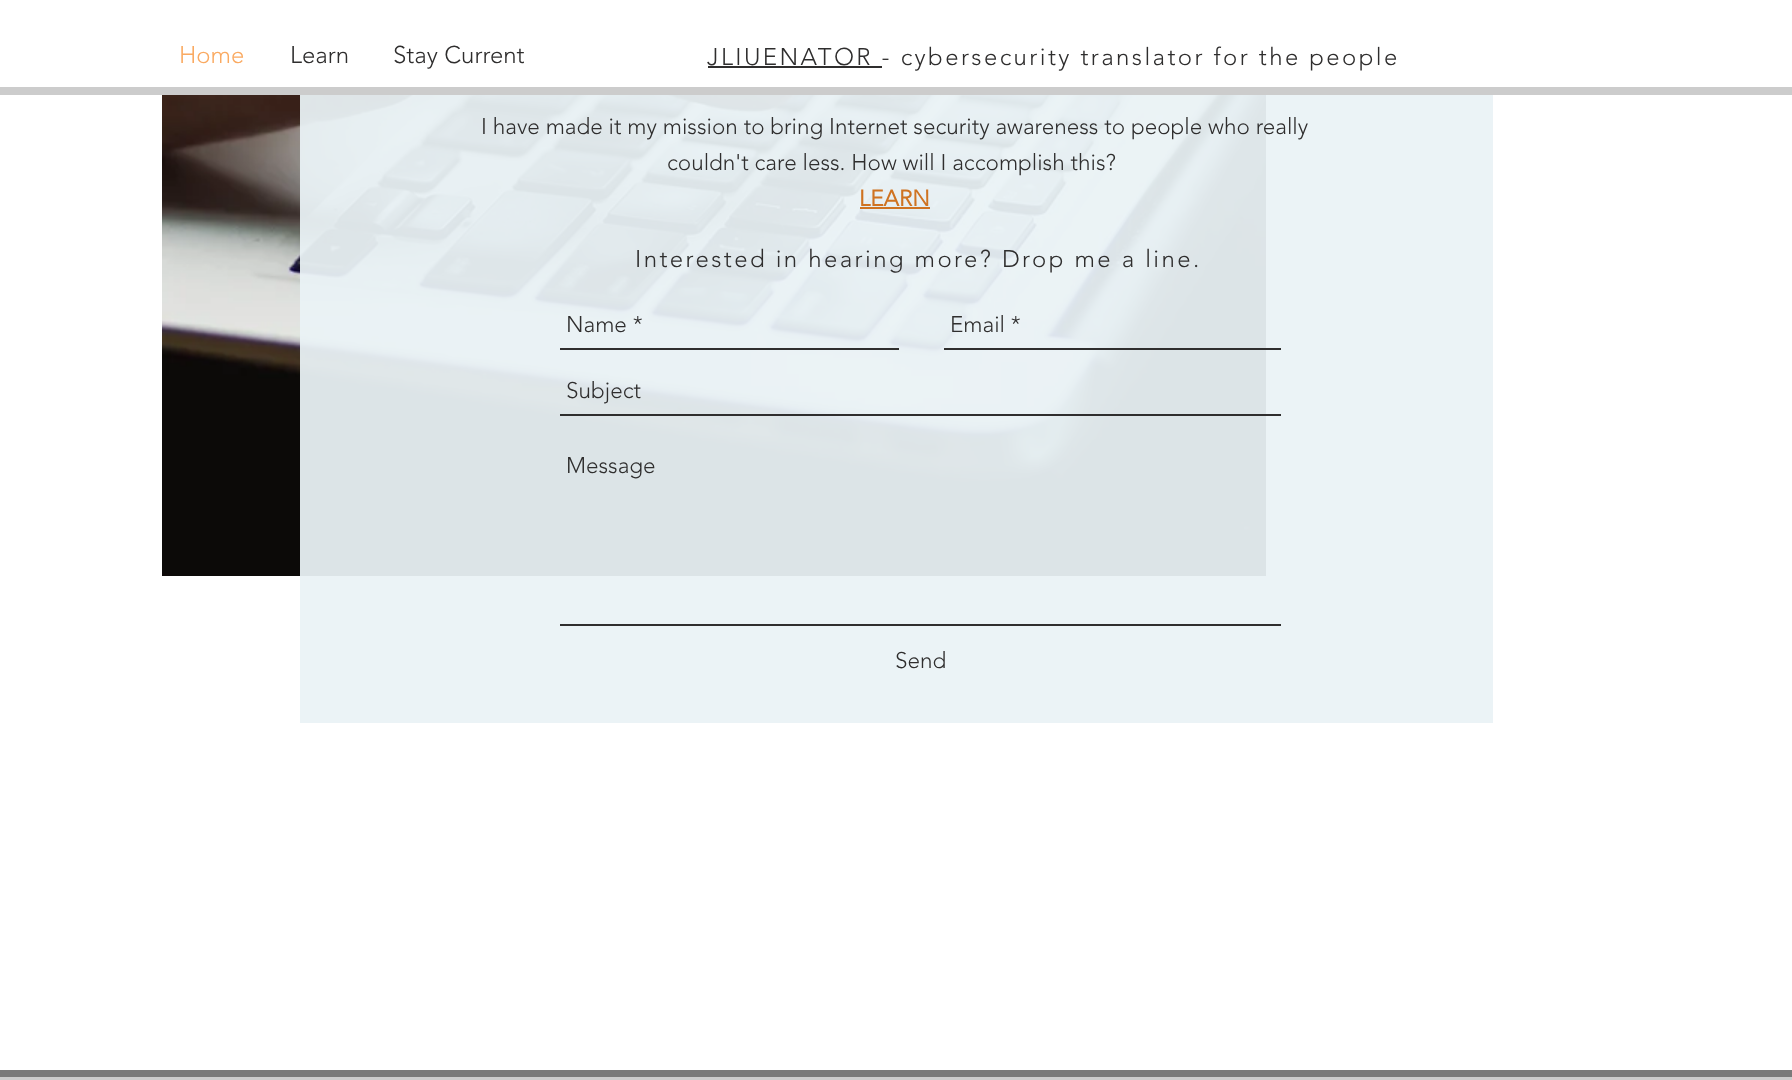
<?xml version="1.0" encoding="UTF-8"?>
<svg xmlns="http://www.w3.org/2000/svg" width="1792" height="1080">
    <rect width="100%" height="100%" fill="#FFFFFF"/>
    <text x="179" y="63" font-family="'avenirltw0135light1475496'" font-size="24" font-weight="300" fill="#FAAA62">Home</text>
    <text x="290" y="63" font-family="'avenirltw0135light1475496'" font-size="24" font-weight="300" fill="#2F2E2E">Learn</text>
    <text x="393" y="63" font-family="'avenirltw0135light1475496'" font-size="24" font-weight="300" fill="#2F2E2E">Stay Current</text>
    <rect x="708" y="66" width="174" height="2" fill="#2F2E2E"/>
    <text x="707" y="65" font-family="'avenirltw0135light1475496'" font-size="24" font-weight="300" letter-spacing="2.4" fill="#2F2E2E">JLIUENATOR - cybersecurity translator for the people</text>
    <rect x="0" y="87" width="1792" height="8" fill="#CCCCCC"/>
    <image x="162" y="95" width="1104" height="481" href="img_01.png"/>
    <rect x="300" y="95" width="1193" height="628" fill="#EAF2F5" fill-opacity="0.94"/>
    <text x="481" y="134" font-family="'avenirltw0135light1475496'" font-size="22.5" font-weight="300" fill="#2F2E2E">I have made it my mission to bring Internet security awareness to people who really</text>
    <text x="667" y="170" font-family="'avenirltw0135light1475496'" font-size="22.5" font-weight="300" fill="#2F2E2E">couldn't care less. How will I accomplish this?</text>
    <text x="859" y="206" font-family="'avenirltw0135light1475496'" font-size="22.5" font-weight="700" fill="#CF7321">LEARN</text>
    <rect x="860" y="207" width="70" height="2" fill="#CF7321"/>
    <text x="635" y="267" font-family="'avenirltw0135light1475496'" font-size="24" font-weight="300" letter-spacing="2.4" fill="#2F2E2E">Interested in hearing more? Drop me a line.</text>
    <rect x="560" y="348" width="339" height="2" fill="#2F2E2E"/>
    <text x="566" y="332" font-family="'avenirltw0135light1475496'" font-size="22.5" font-weight="300" fill="#2F2E2E">Name *</text>
    <rect x="944" y="348" width="337" height="2" fill="#2F2E2E"/>
    <text x="950" y="332" font-family="'avenirltw0135light1475496'" font-size="22.5" font-weight="300" fill="#2F2E2E">Email *</text>
    <rect x="560" y="414" width="721" height="2" fill="#2F2E2E"/>
    <text x="566" y="398" font-family="'avenirltw0135light1475496'" font-size="22.5" font-weight="300" fill="#2F2E2E">Subject</text>
    <rect x="560" y="624" width="721" height="2" fill="#2F2E2E"/>
    <text x="566" y="473" font-family="'avenirltw0135light1475496'" font-size="22.5" font-weight="300" fill="#2F2E2E">Message</text>
    <text x="895" y="668" font-family="'avenirltw0135light1475496'" font-size="22.5" font-weight="300" fill="#2F2E2E">Send</text>
    <rect x="0" y="1077" width="1792" height="3" fill="#CCCCCC"/>
    <rect x="0" y="1070" width="1792" height="7" fill="#7A7A7A"/>
</svg>
